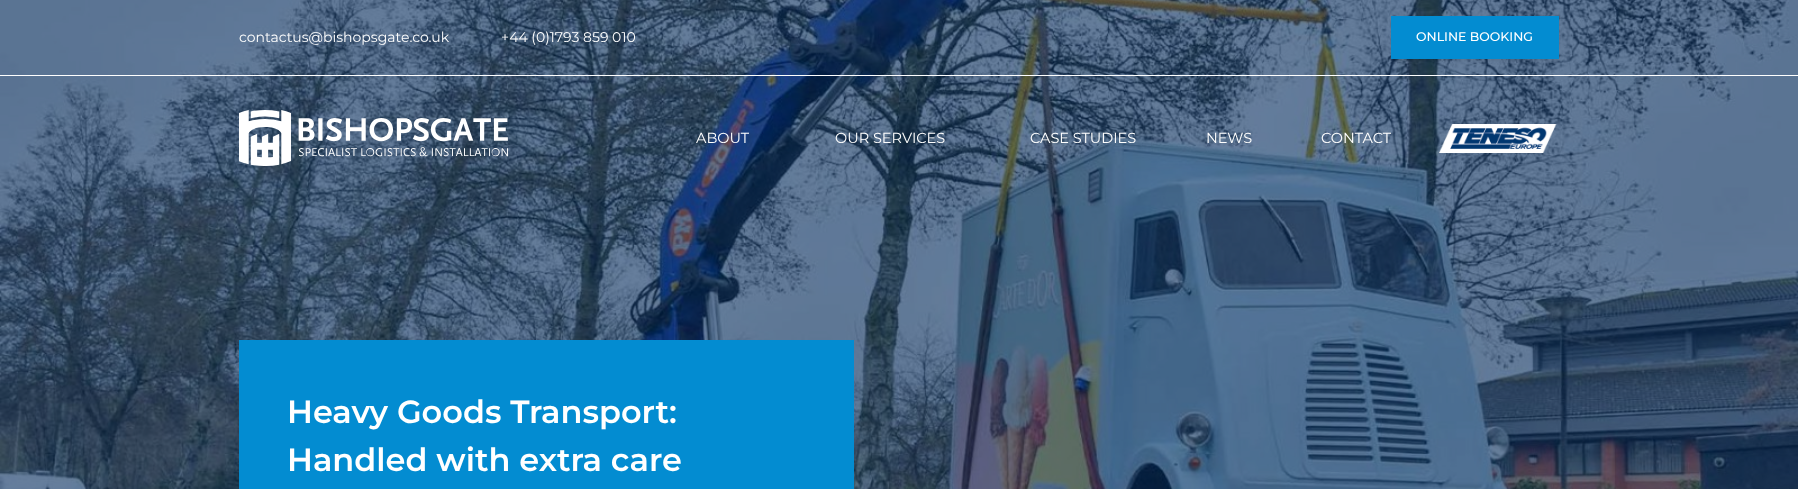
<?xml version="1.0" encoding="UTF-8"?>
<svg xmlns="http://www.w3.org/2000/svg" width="1798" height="489">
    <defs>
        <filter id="blur1" x="-50%" y="-200%" width="200%" height="500%"><feGaussianBlur stdDeviation="2"/></filter>
    </defs>
    <rect width="100%" height="100%" fill="#FFFFFF"/>
    <image x="0" y="0" width="1798" height="489" href="img_03.png"/>
    <rect x="0" y="75" width="1798" height="1" fill="#FFFFFF"/>
    <text x="239" y="42" font-family="Montserrat" font-size="14" fill="#FFFFFF">contactus@bishopsgate.co.uk</text>
    <text x="501" y="42" font-family="Montserrat" font-size="14" fill="#FFFFFF">+44 (0)1793 859 010</text>
    <rect x="1391" y="18" width="168" height="43" fill="#000000" fill-opacity="0.07" filter="url(#blur1)"/>
    <rect x="1391" y="16" width="168" height="43" fill="#038CD1"/>
    <text x="1416" y="41" font-family="Montserrat" font-size="12.5" font-weight="500" fill="#FFFFFF">ONLINE BOOKING</text>
    <image x="239" y="110" width="269" height="56" href="img_01.png"/>
    <text x="696" y="143" font-family="Montserrat" font-size="14.5" fill="#FFFFFF">ABOUT</text>
    <text x="835" y="143" font-family="Montserrat" font-size="14.5" fill="#FFFFFF">OUR SERVICES</text>
    <text x="1030" y="143" font-family="Montserrat" font-size="14.5" fill="#FFFFFF">CASE STUDIES</text>
    <text x="1206" y="143" font-family="Montserrat" font-size="14.5" fill="#FFFFFF">NEWS</text>
    <text x="1321" y="143" font-family="Montserrat" font-size="14.5" fill="#FFFFFF">CONTACT</text>
    <image x="1439" y="124" width="118" height="29" href="img_02.png"/>
    <path d="M 239 340 V 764 L 854 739 V 340 Z" fill="#038CD1"/>
    <text font-family="Montserrat" font-size="32" font-weight="600" fill="#FFFFFF">
        <tspan x="287" y="423">Heavy Goods Transport:</tspan>
        <tspan x="287" y="471">Handled with extra care</tspan>
    </text>
</svg>
